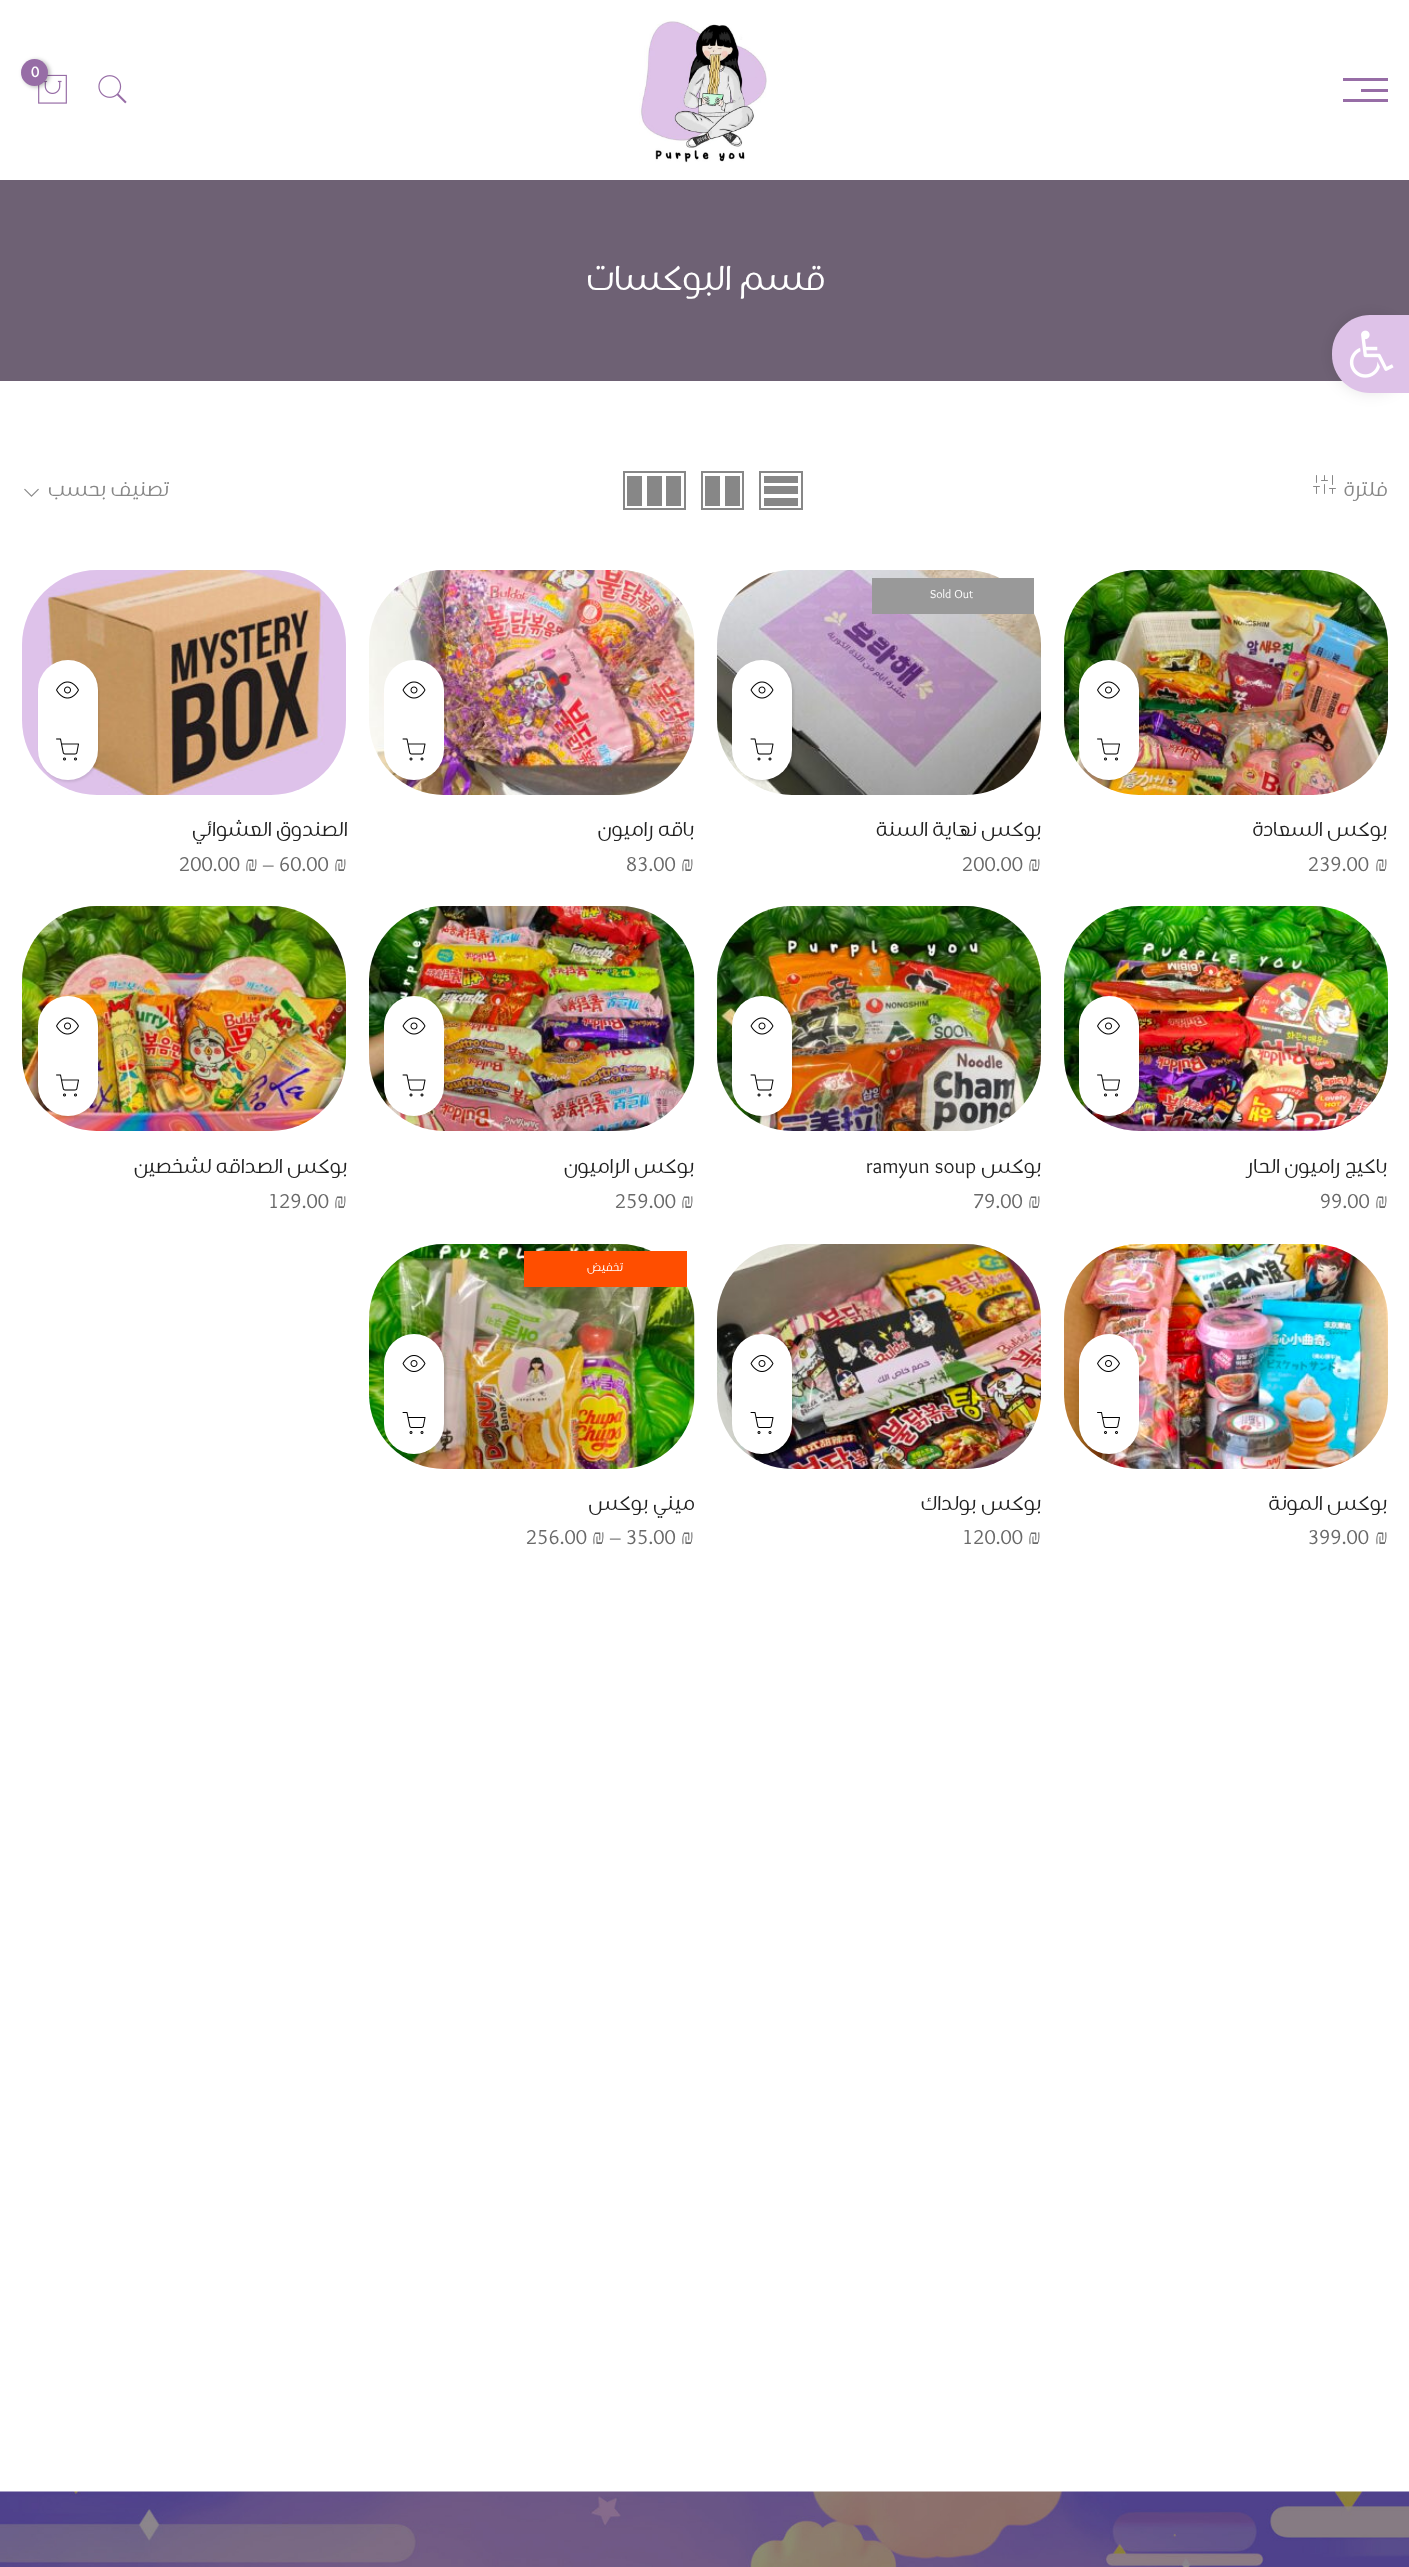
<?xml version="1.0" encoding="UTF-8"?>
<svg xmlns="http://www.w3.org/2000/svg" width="1409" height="2567">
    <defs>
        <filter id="blur1" x="-50%" y="-200%" width="200%" height="500%"><feGaussianBlur stdDeviation="2"/></filter>
        <filter id="blur2" x="-50%" y="-200%" width="200%" height="500%"><feGaussianBlur stdDeviation="1"/></filter>
        <filter id="blur3" x="-50%" y="-200%" width="200%" height="500%"><feGaussianBlur stdDeviation="7.5"/></filter>
    </defs>
    <rect width="100%" height="100%" fill="#FFFFFF"/>
    <image x="639" y="20" width="128" height="143" href="img_01.png"/>
    <image x="38" y="74" width="29" height="30" href="img_02.png"/>
    <rect x="23" y="60" width="27" height="27" rx="13.5" fill="#000000" fill-opacity="0.3" filter="url(#blur1)"/>
    <circle cx="34.5" cy="72.5" r="13.5" fill="#976DA6"/>
    <text x="31" y="77" font-family="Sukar" font-size="15" font-weight="700" fill="#FFFFFF">0</text>
    <image x="98" y="75" width="29" height="29" href="img_03.png"/>
    <rect x="1343" y="99" width="45" height="3" fill="#976DA6"/>
    <rect x="1343" y="78" width="45" height="3" fill="#976DA6"/>
    <rect x="1361" y="89" width="27" height="3" fill="#976DA6"/>
    <rect x="0" y="180" width="1409" height="201" fill="#6E6174"/>
    <text x="824" y="290" font-family="Sukar" font-size="36" direction="rtl" fill="#FFFFFF">قسم البوكسات</text>
    <text x="1387" y="496" font-family="Sukar" font-size="21" direction="rtl" fill="#878787">فلترة</text>
    <image x="1313" y="475" width="23" height="19" href="img_04.png"/>
    <rect x="760" y="472" width="42" height="37" fill="none" stroke="#878787" stroke-width="2"/>
    <rect x="764" y="498" width="34" height="8" fill="#878787"/>
    <rect x="764" y="486" width="34" height="8" fill="#878787"/>
    <rect x="764" y="476" width="34" height="7" fill="#878787"/>
    <rect x="702" y="472" width="41" height="37" fill="none" stroke="#878787" stroke-width="2"/>
    <rect x="725" y="476" width="15" height="30" fill="#878787"/>
    <rect x="705" y="476" width="15" height="30" fill="#878787"/>
    <rect x="624" y="472" width="61" height="37" fill="none" stroke="#878787" stroke-width="2"/>
    <rect x="666" y="476" width="15" height="30" fill="#878787"/>
    <rect x="647" y="476" width="15" height="30" fill="#878787"/>
    <rect x="627" y="476" width="15" height="30" fill="#878787"/>
    <text x="169" y="496" font-family="Sukar" font-size="21" direction="rtl" fill="#878787">تصنيف بحسب</text>
    <image x="24" y="488" width="15" height="9" href="img_05.png"/>
    <image x="1064" y="570" width="324" height="225" href="img_06.png"/>
    <rect x="1080" y="662" width="60" height="120" rx="30" fill="#000000" fill-opacity="0.1" filter="url(#blur2)"/>
    <rect x="1079" y="660" width="60" height="120" rx="30" fill="#FFFFFF"/>
    <image x="1097" y="681" width="23" height="18" href="img_07.png"/>
    <path d="M 1116 681 C 1119 678 1123.5 676.5 1127.5 677.5 C 1142.5 680.5 1140 703 1125 703 C 1121.5 703 1118.5 701.5 1116 699" fill="none" stroke="#FFFFFF" stroke-width="1.5"/>
    <image x="1097" y="738" width="23" height="23" href="img_08.png"/>
    <text x="1387" y="836" font-family="Sukar" font-size="21" direction="rtl" fill="#222222">بوكس السعادة</text>
    <text x="1375" y="871" font-family="Liberation Serif" font-size="21" fill="#696969">₪</text>
    <text x="1308" y="871" font-family="Sukar" font-size="21" fill="#696969">239.00</text>
    <image x="717" y="570" width="324" height="225" href="img_09.png"/>
    <rect x="872" y="578" width="162" height="36" fill="#999999"/>
    <text x="930" y="598" font-family="Sukar" font-size="12" fill="#FFFFFF">Sold Out</text>
    <rect x="734" y="662" width="60" height="120" rx="30" fill="#000000" fill-opacity="0.1" filter="url(#blur2)"/>
    <rect x="732" y="660" width="60" height="120" rx="30" fill="#FFFFFF"/>
    <image x="750" y="681" width="24" height="18" href="img_10.png"/>
    <image x="750" y="738" width="24" height="23" href="img_11.png"/>
    <text x="1041" y="836" font-family="Sukar" font-size="21" direction="rtl" fill="#222222">بوكس نهاية السنة</text>
    <text x="1028" y="871" font-family="Liberation Serif" font-size="21" fill="#696969">₪</text>
    <text x="962" y="871" font-family="Sukar" font-size="21" fill="#696969">200.00</text>
    <image x="369" y="570" width="326" height="225" href="img_12.png"/>
    <rect x="386" y="662" width="60" height="120" rx="30" fill="#000000" fill-opacity="0.1" filter="url(#blur2)"/>
    <rect x="384" y="660" width="60" height="120" rx="30" fill="#FFFFFF"/>
    <image x="402" y="681" width="24" height="18" href="img_10.png"/>
    <image x="402" y="738" width="24" height="23" href="img_11.png"/>
    <text x="694" y="836" font-family="Sukar" font-size="21" direction="rtl" fill="#222222">باقه راميون</text>
    <text x="681" y="871" font-family="Liberation Serif" font-size="21" fill="#696969">₪</text>
    <text x="626" y="871" font-family="Sukar" font-size="21" fill="#696969">83.00</text>
    <image x="22" y="570" width="324" height="225" href="img_13.png"/>
    <rect x="39" y="662" width="60" height="120" rx="30" fill="#000000" fill-opacity="0.1" filter="url(#blur2)"/>
    <rect x="38" y="660" width="60" height="120" rx="30" fill="#FFFFFF"/>
    <image x="56" y="681" width="23" height="18" href="img_07.png"/>
    <path d="M 75 681 C 78 678 82.5 676.5 86.5 677.5 C 101.5 680.5 99 703 84 703 C 80.5 703 77.5 701.5 75 699" fill="none" stroke="#FFFFFF" stroke-width="1.5"/>
    <image x="56" y="738" width="23" height="23" href="img_08.png"/>
    <text x="347" y="836" font-family="Sukar" font-size="21" direction="rtl" fill="#222222">الصندوق العشوائي</text>
    <text x="334" y="871" font-family="Liberation Serif" font-size="21" fill="#696969">₪</text>
    <text x="279" y="871" font-family="Sukar" font-size="21" fill="#696969">60.00</text>
    <text x="263" y="871" font-family="Liberation Serif" font-size="21" fill="#696969">–</text>
    <text x="245" y="871" font-family="Liberation Serif" font-size="21" fill="#696969">₪</text>
    <text x="179" y="871" font-family="Sukar" font-size="21" fill="#696969">200.00</text>
    <image x="1064" y="906" width="324" height="225" href="img_14.png"/>
    <rect x="1080" y="998" width="60" height="120" rx="30" fill="#000000" fill-opacity="0.1" filter="url(#blur2)"/>
    <rect x="1079" y="996" width="60" height="120" rx="30" fill="#FFFFFF"/>
    <image x="1097" y="1017" width="23" height="18" href="img_07.png"/>
    <path d="M 1116 1017 C 1119 1014 1123.5 1012.5 1127.5 1013.5 C 1142.5 1016.5 1140 1039 1125 1039 C 1121.5 1038.5 1118.5 1037.5 1116 1035" fill="none" stroke="#FFFFFF" stroke-width="1.5"/>
    <image x="1097" y="1074" width="23" height="23" href="img_08.png"/>
    <text x="1387" y="1173" font-family="Sukar" font-size="21" direction="rtl" fill="#222222">باكيج راميون الحار</text>
    <text x="1375" y="1208" font-family="Liberation Serif" font-size="21" fill="#696969">₪</text>
    <text x="1320" y="1208" font-family="Sukar" font-size="21" fill="#696969">99.00</text>
    <image x="717" y="906" width="324" height="225" href="img_15.png"/>
    <rect x="734" y="998" width="60" height="120" rx="30" fill="#000000" fill-opacity="0.1" filter="url(#blur2)"/>
    <rect x="732" y="996" width="60" height="120" rx="30" fill="#FFFFFF"/>
    <image x="750" y="1017" width="24" height="18" href="img_10.png"/>
    <image x="750" y="1074" width="24" height="23" href="img_11.png"/>
    <text x="1041" y="1173" font-family="Sukar" font-size="21" direction="rtl" fill="#222222">بوكس</text>
    <text x="866" y="1173" font-family="Sukar" font-size="21" fill="#222222">ramyun soup</text>
    <text x="1028" y="1208" font-family="Liberation Serif" font-size="21" fill="#696969">₪</text>
    <text x="973" y="1208" font-family="Sukar" font-size="21" fill="#696969">79.00</text>
    <image x="369" y="906" width="326" height="225" href="img_16.png"/>
    <rect x="386" y="998" width="60" height="120" rx="30" fill="#000000" fill-opacity="0.1" filter="url(#blur2)"/>
    <rect x="384" y="996" width="60" height="120" rx="30" fill="#FFFFFF"/>
    <image x="402" y="1017" width="24" height="18" href="img_10.png"/>
    <image x="402" y="1074" width="24" height="23" href="img_11.png"/>
    <text x="694" y="1173" font-family="Sukar" font-size="21" direction="rtl" fill="#222222">بوكس الراميون</text>
    <text x="681" y="1208" font-family="Liberation Serif" font-size="21" fill="#696969">₪</text>
    <text x="615" y="1208" font-family="Sukar" font-size="21" fill="#696969">259.00</text>
    <image x="22" y="906" width="324" height="225" href="img_17.png"/>
    <rect x="39" y="998" width="60" height="120" rx="30" fill="#000000" fill-opacity="0.1" filter="url(#blur2)"/>
    <rect x="38" y="996" width="60" height="120" rx="30" fill="#FFFFFF"/>
    <image x="56" y="1017" width="23" height="18" href="img_07.png"/>
    <path d="M 75 1017 C 78 1014 82.5 1012.5 86.5 1013.5 C 101.5 1016.5 99 1039 84 1039 C 80.5 1038.5 77.5 1037.5 75 1035" fill="none" stroke="#FFFFFF" stroke-width="1.5"/>
    <image x="56" y="1074" width="23" height="23" href="img_08.png"/>
    <text x="347" y="1173" font-family="Sukar" font-size="21" direction="rtl" fill="#222222">بوكس الصداقه لشخصين</text>
    <text x="334" y="1208" font-family="Liberation Serif" font-size="21" fill="#696969">₪</text>
    <text x="268" y="1208" font-family="Sukar" font-size="21" fill="#696969">129.00</text>
    <image x="1064" y="1244" width="324" height="225" href="img_18.png"/>
    <rect x="1080" y="1335" width="60" height="120" rx="30" fill="#000000" fill-opacity="0.1" filter="url(#blur2)"/>
    <rect x="1079" y="1334" width="60" height="120" rx="30" fill="#FFFFFF"/>
    <image x="1097" y="1355" width="23" height="17" href="img_19.png"/>
    <image x="1097" y="1412" width="23" height="22" href="img_20.png"/>
    <text x="1387" y="1510" font-family="Sukar" font-size="21" direction="rtl" fill="#222222">بوكس المونة</text>
    <text x="1375" y="1544" font-family="Liberation Serif" font-size="21" fill="#696969">₪</text>
    <text x="1308" y="1544" font-family="Sukar" font-size="21" fill="#696969">399.00</text>
    <image x="717" y="1244" width="324" height="225" href="img_21.png"/>
    <rect x="734" y="1335" width="60" height="120" rx="30" fill="#000000" fill-opacity="0.1" filter="url(#blur2)"/>
    <rect x="732" y="1334" width="60" height="120" rx="30" fill="#FFFFFF"/>
    <image x="750" y="1355" width="24" height="17" href="img_22.png"/>
    <image x="750" y="1412" width="24" height="22" href="img_23.png"/>
    <text x="1041" y="1510" font-family="Sukar" font-size="21" direction="rtl" fill="#222222">بوكس بولداك</text>
    <text x="1028" y="1544" font-family="Liberation Serif" font-size="21" fill="#696969">₪</text>
    <text x="962" y="1544" font-family="Sukar" font-size="21" fill="#696969">120.00</text>
    <image x="369" y="1244" width="326" height="225" href="img_24.png"/>
    <rect x="524" y="1251" width="163" height="36" fill="#FF4E00"/>
    <text x="623" y="1271" font-family="Sukar" font-size="12" direction="rtl" fill="#FFFFFF">تخفيض</text>
    <rect x="386" y="1335" width="60" height="120" rx="30" fill="#000000" fill-opacity="0.1" filter="url(#blur2)"/>
    <rect x="384" y="1334" width="60" height="120" rx="30" fill="#FFFFFF"/>
    <image x="402" y="1355" width="24" height="17" href="img_22.png"/>
    <image x="402" y="1412" width="24" height="22" href="img_23.png"/>
    <text x="694" y="1510" font-family="Sukar" font-size="21" direction="rtl" fill="#222222">ميني بوكس</text>
    <text x="681" y="1544" font-family="Liberation Serif" font-size="21" fill="#696969">₪</text>
    <text x="626" y="1544" font-family="Sukar" font-size="21" fill="#696969">35.00</text>
    <text x="610" y="1544" font-family="Liberation Serif" font-size="21" fill="#696969">–</text>
    <text x="592" y="1544" font-family="Liberation Serif" font-size="21" fill="#696969">₪</text>
    <text x="526" y="1544" font-family="Sukar" font-size="21" fill="#696969">256.00</text>
    <image x="0" y="2491" width="1409" height="76" href="img_25.png"/>
    <rect x="1332" y="315" width="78" height="78" rx="38" fill="#000000" fill-opacity="0.1" filter="url(#blur3)"/>
    <path d="M 1370 315 H 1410 V 393 H 1370 C 1349 393 1332 376 1332 355 V 353 C 1332 332 1349 315 1370 315 Z" fill="#DEC2E8"/>
    <image x="1349" y="330" width="45" height="48" href="img_26.png"/>
</svg>
